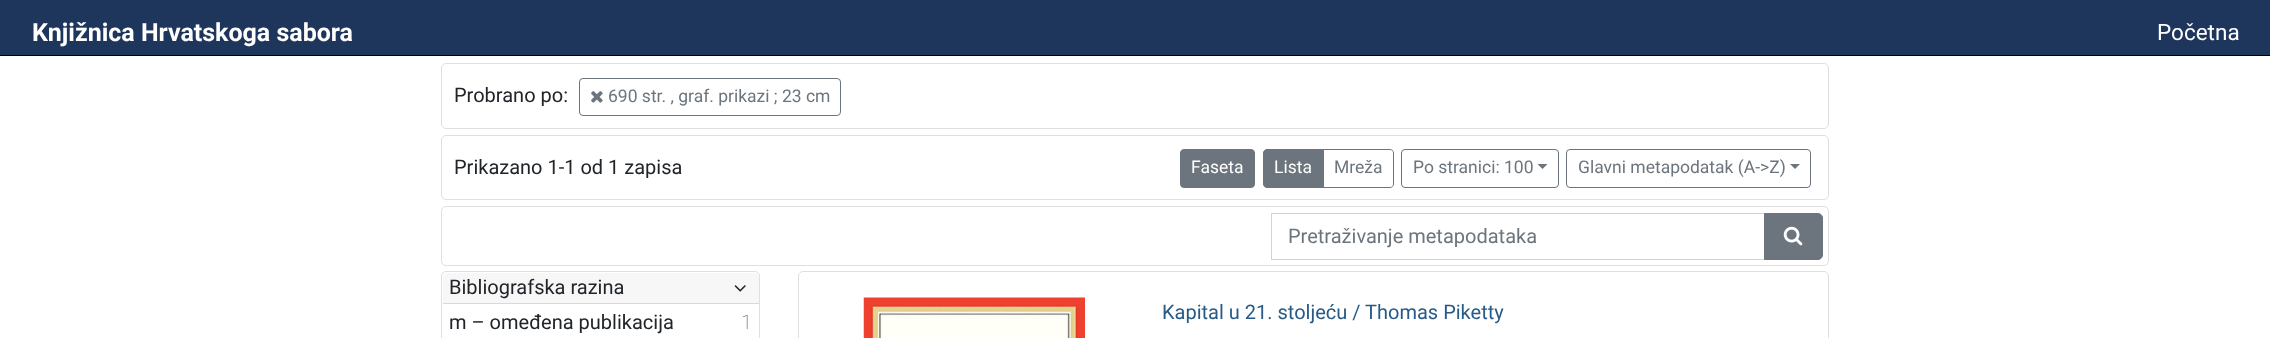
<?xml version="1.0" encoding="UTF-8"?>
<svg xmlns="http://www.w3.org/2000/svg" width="2270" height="338">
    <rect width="100%" height="100%" fill="#FFFFFF"/>
    <rect x="0" y="0" width="2270" height="55" fill="#1F365C"/>
    <rect x="0" y="55" width="2270" height="1" fill="#000000"/>
    <text x="32" y="41" font-family="Roboto" font-size="25" font-weight="700" fill="#FFFFFF">Knjižnica Hrvatskoga sabora</text>
    <text x="2157" y="40" font-family="Roboto" font-size="22.5" fill="#FFFFFF">Početna</text>
    <rect x="441.5" y="63.5" width="1387" height="65" rx="4.5" fill="none" stroke="#DFDFDF"/>
    <text x="454" y="102" font-family="Roboto" font-size="20" fill="#212529">Probrano po:</text>
    <rect x="579.5" y="78.5" width="261" height="37" rx="3.5" fill="none" stroke="#6C757D"/>
    <image x="591" y="91" width="12" height="12" href="img_01.png"/>
    <text x="608" y="102" font-family="Roboto" font-size="17.5" fill="#6C757D">690 str. , graf. prikazi ; 23 cm</text>
    <rect x="441.5" y="135.5" width="1387" height="64" rx="4.5" fill="none" stroke="#DFDFDF"/>
    <text x="454" y="174" font-family="Roboto" font-size="20" fill="#212529">Prikazano 1-1 od 1 zapisa</text>
    <rect x="1180.5" y="149.5" width="74" height="38" rx="3.5" fill="#6C757D" stroke="#6C757D"/>
    <text x="1191" y="173" font-family="Roboto" font-size="17.5" fill="#FFFFFF">Faseta</text>
    <path d="M 1267 149.5 H 1323.5 V 187.5 H 1267 C 1265 187.5 1263.5 186 1263.5 184 V 153 C 1263.5 151 1265 149.5 1267 149.5 Z" fill="#6C757D" stroke="#6C757D"/>
    <text x="1274" y="173" font-family="Roboto" font-size="17.5" fill="#FFFFFF">Lista</text>
    <path d="M 1323.5 149.5 H 1390 C 1392 149.5 1393.5 151 1393.5 153 V 184 C 1393.5 186 1392 187.5 1390 187.5 H 1323.5 Z" fill="none" stroke="#6C757D"/>
    <text x="1334" y="173" font-family="Roboto" font-size="17.5" fill="#6C757D">Mreža</text>
    <rect x="1401.5" y="149.5" width="157" height="38" rx="3.5" fill="none" stroke="#6C757D"/>
    <text x="1413" y="173" font-family="Roboto" font-size="17.5" fill="#6C757D">Po stranici: 100</text>
    <path d="M 1537.5 164 H 1547.5 L 1542.5 169 Z" fill="#6C757D"/>
    <rect x="1566.5" y="149.5" width="244" height="38" rx="3.5" fill="none" stroke="#6C757D"/>
    <text x="1578" y="173" font-family="Roboto" font-size="17.5" fill="#6C757D">Glavni metapodatak (A-&gt;Z)</text>
    <path d="M 1790 164 H 1800 L 1795 169 Z" fill="#6C757D"/>
    <rect x="441.5" y="206.5" width="1387" height="59" rx="4.5" fill="none" stroke="#DFDFDF"/>
    <rect x="1271.5" y="213.5" width="493" height="46" fill="none" stroke="#CED4DA"/>
    <text x="1288" y="243" font-family="Roboto" font-size="20" fill="#6C757D">Pretraživanje metapodataka</text>
    <path d="M 1764.5 213.5 H 1818 C 1820.5 213.5 1822.5 215.5 1822.5 218 V 255 C 1822.5 257.5 1820.5 259.5 1818 259.5 H 1764.5 Z" fill="#6C757D" stroke="#6C757D"/>
    <image x="1783" y="226" width="20" height="20" href="img_02.png"/>
    <rect x="441.5" y="271.5" width="318" height="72" rx="4.5" fill="none" stroke="#DFDFDF"/>
    <path d="M 447 273 H 755 C 757 273 759 275 759 277 V 304 H 443 V 277 C 443 275 445 273 447 273 Z" fill="#F7F7F7"/>
    <rect x="443" y="303" width="316" height="1" fill="#D8D8D8"/>
    <text x="449" y="294" font-family="Roboto" font-size="20" fill="#212529">Bibliografska razina</text>
    <image x="734" y="285" width="12" height="7" href="img_03.png"/>
    <text x="449" y="329" font-family="Roboto" font-size="20" fill="#212529">m – omeđena publikacija</text>
    <text x="741" y="329" font-family="Roboto" font-size="20" font-weight="200" fill="#808080">1</text>
    <rect x="798.5" y="271.5" width="1030" height="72" rx="4.5" fill="none" stroke="#DFDFDF"/>
    <image x="863" y="297" width="222" height="41" href="img_04.png"/>
    <text x="1162" y="319" font-family="Roboto" font-size="20" fill="#275A87">Kapital u 21. stoljeću / Thomas Piketty</text>
</svg>
